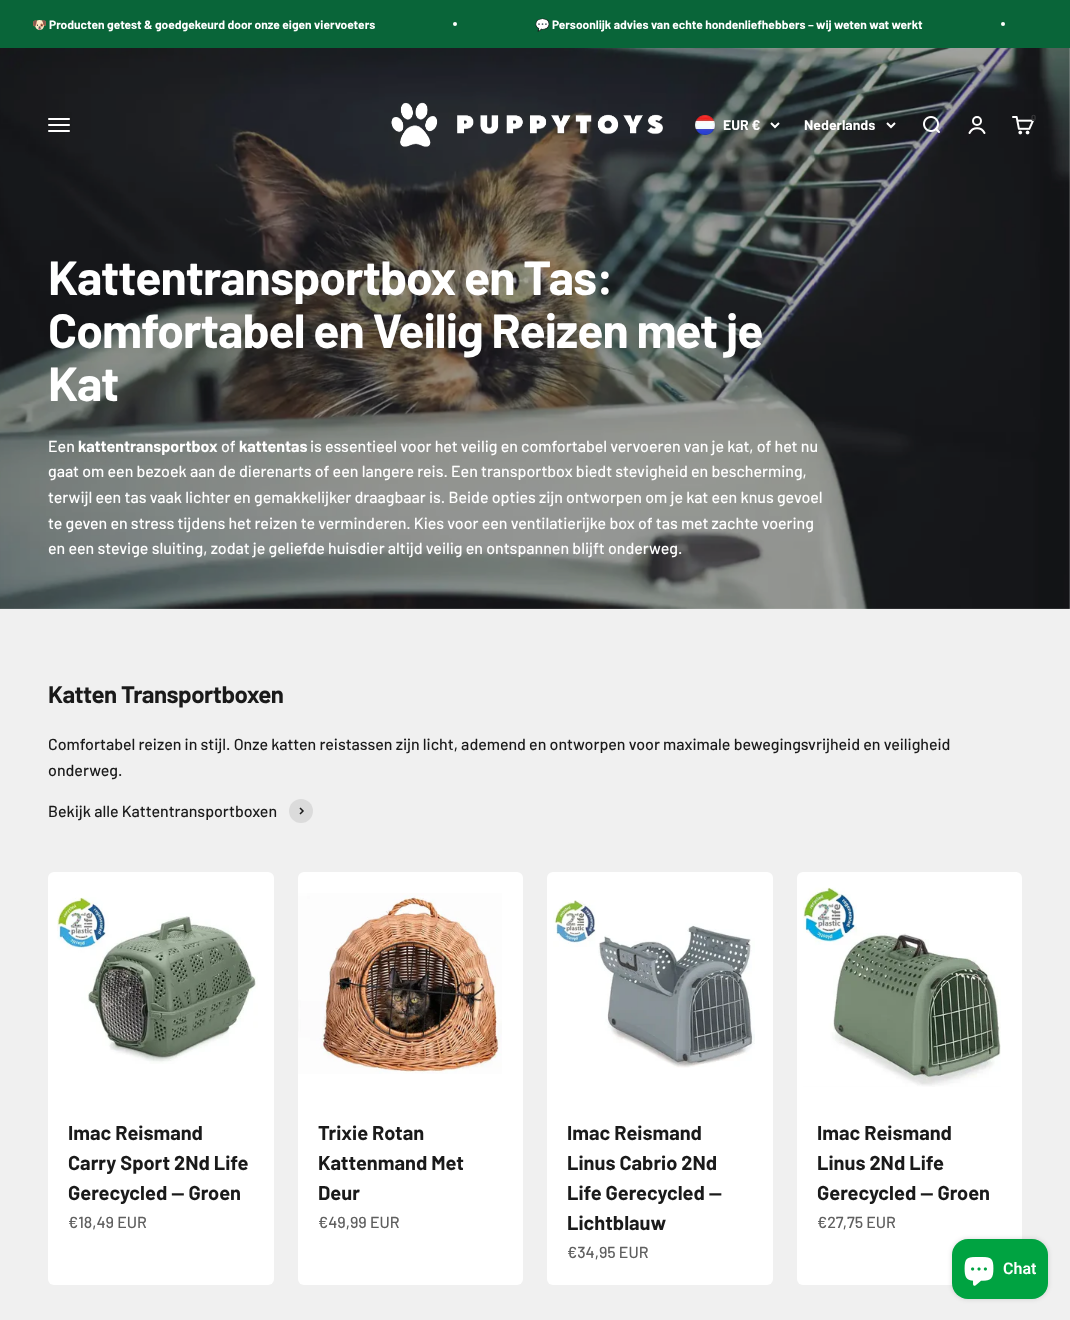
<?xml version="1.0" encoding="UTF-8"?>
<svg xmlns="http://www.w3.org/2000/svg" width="1070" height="1320">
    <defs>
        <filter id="blur1" x="-50%" y="-200%" width="200%" height="500%"><feGaussianBlur stdDeviation="2.5"/></filter>
    </defs>
    <rect width="100%" height="100%" fill="#FFFFFF"/>
    <rect x="0" y="0" width="1070" height="48" fill="#096539"/>
    <text x="32" y="29" font-family="Noto Color Emoji" font-size="12" font-weight="700" fill="#FFFFFF">🐶</text>
    <text x="49" y="29" font-family="Barlow" font-size="12" font-weight="700" fill="#FFFFFF">Producten getest &amp; goedgekeurd door onze eigen viervoeters</text>
    <circle cx="455" cy="24" r="2" fill="#FFFFFF"/>
    <text x="535" y="29" font-family="Noto Color Emoji" font-size="12" font-weight="700" fill="#FFFFFF">💬</text>
    <text x="552" y="29" font-family="Barlow" font-size="12" font-weight="700" fill="#FFFFFF">Persoonlijk advies van echte hondenliefhebbers – wij weten wat werkt</text>
    <circle cx="1003" cy="24" r="2" fill="#FFFFFF"/>
    <image x="0" y="48" width="1070" height="561" href="img_06.png"/>
    <image x="48" y="118" width="22" height="14" href="img_01.png"/>
    <image x="391" y="102" width="272" height="46" href="img_02.png"/>
    <image x="695" y="115" width="21" height="23" href="img_03.png"/>
    <text x="723" y="130" font-family="Barlow" font-size="14" font-weight="700" fill="#FFFFFF">EUR €</text>
    <path d="M 771 123 L 775 127 L 779 123" fill="none" stroke="#FFFFFF" stroke-width="2"/>
    <text x="804" y="130" font-family="Barlow" font-size="14" font-weight="700" fill="#FFFFFF">Nederlands</text>
    <path d="M 887 123 L 891 127 L 895 123" fill="none" stroke="#FFFFFF" stroke-width="2"/>
    <image x="923" y="116" width="17" height="17" href="img_04.png"/>
    <circle cx="977" cy="121" r="4" fill="none" stroke="#FFFFFF" stroke-width="2"/>
    <path d="M 969.5 133 C 972.5 126.5 981.5 126.5 984.5 133" fill="none" stroke="#FFFFFF" stroke-width="2" stroke-linecap="round"/>
    <image x="1012" y="116" width="22" height="19" href="img_05.png"/>
    <text x="1031" y="121" font-family="Barlow" font-size="9" font-weight="700" fill="#373739">0</text>
    <text font-family="Barlow" font-size="48" font-weight="700" letter-spacing="-0.95" fill="#FFFFFF">
        <tspan x="48" y="295">Kattentransportbox en Tas:</tspan>
        <tspan x="48" y="348">Comfortabel en Veilig Reizen met je</tspan>
        <tspan x="48" y="401">Kat</tspan>
    </text>
    <text x="48" y="452" font-family="Barlow" font-size="16" font-weight="500" fill="#FFFFFF">Een</text>
    <text x="78" y="452" font-family="Barlow" font-size="16" font-weight="700" fill="#FFFFFF">kattentransportbox</text>
    <text x="221" y="452" font-family="Barlow" font-size="16" font-weight="500" fill="#FFFFFF">of</text>
    <text x="239" y="452" font-family="Barlow" font-size="16" font-weight="700" fill="#FFFFFF">kattentas</text>
    <text x="310" y="452" font-family="Barlow" font-size="16" font-weight="500" fill="#FFFFFF">is essentieel voor het veilig en comfortabel vervoeren van je kat, of het nu</text>
    <text font-family="Barlow" font-size="16" font-weight="500" fill="#FFFFFF">
        <tspan x="48" y="477">gaat om een bezoek aan de dierenarts of een langere reis. Een transportbox biedt stevigheid en bescherming,</tspan>
        <tspan x="48" y="503">terwijl een tas vaak lichter en gemakkelijker draagbaar is. Beide opties zijn ontworpen om je kat een knus gevoel</tspan>
        <tspan x="48" y="529">te geven en stress tijdens het reizen te verminderen. Kies voor een ventilatierijke box of tas met zachte voering</tspan>
        <tspan x="48" y="554">en een stevige sluiting, zodat je geliefde huisdier altijd veilig en ontspannen blijft onderweg.</tspan>
    </text>
    <rect x="0" y="609" width="1070" height="711" fill="#F0F0F0"/>
    <text x="48" y="703" font-family="Barlow" font-size="24" font-weight="700" letter-spacing="-0.5" fill="#1A1A1A">Katten Transportboxen</text>
    <text font-family="Barlow" font-size="16" font-weight="500" fill="#1A1A1A">
        <tspan x="48" y="750">Comfortabel reizen in stijl. Onze katten reistassen zijn licht, ademend en ontworpen voor maximale bewegingsvrijheid en veiligheid</tspan>
        <tspan x="48" y="776">onderweg.</tspan>
    </text>
    <text x="48" y="817" font-family="Barlow" font-size="16" font-weight="500" fill="#1A1A1A">Bekijk alle Kattentransportboxen</text>
    <circle cx="301" cy="811" r="12" fill="#DBDBDB"/>
    <path d="M 300 814 L 303 811 L 300 808" fill="none" stroke="#1A1A1A" stroke-width="1.5"/>
    <rect x="48" y="872" width="226" height="413" rx="6" fill="#FFFFFF"/>
    <image x="57" y="897" width="201" height="167" href="img_07.png"/>
    <text font-family="Barlow" font-size="20" font-weight="700" fill="#1A1A1A">
        <tspan x="68" y="1140">Imac Reismand</tspan>
        <tspan x="68" y="1170">Carry Sport 2Nd Life</tspan>
        <tspan x="68" y="1200">Gerecycled — Groen</tspan>
    </text>
    <text x="68" y="1228" font-family="Barlow" font-size="16" font-weight="500" fill="#5F5F5F">€18,49 EUR</text>
    <rect x="298" y="872" width="225" height="413" rx="6" fill="#FFFFFF"/>
    <image x="298" y="893" width="204" height="181" href="img_08.png"/>
    <text font-family="Barlow" font-size="20" font-weight="700" fill="#1A1A1A">
        <tspan x="318" y="1140">Trixie Rotan</tspan>
        <tspan x="318" y="1170">Kattenmand Met</tspan>
        <tspan x="318" y="1200">Deur</tspan>
    </text>
    <text x="318" y="1228" font-family="Barlow" font-size="16" font-weight="500" fill="#5F5F5F">€49,99 EUR</text>
    <rect x="547" y="872" width="226" height="413" rx="6" fill="#FFFFFF"/>
    <image x="553" y="900" width="202" height="168" href="img_09.png"/>
    <text font-family="Barlow" font-size="20" font-weight="700" fill="#1A1A1A">
        <tspan x="567" y="1140">Imac Reismand</tspan>
        <tspan x="567" y="1170">Linus Cabrio 2Nd</tspan>
        <tspan x="567" y="1200">Life Gerecycled —</tspan>
        <tspan x="567" y="1230">Lichtblauw</tspan>
    </text>
    <text x="567" y="1258" font-family="Barlow" font-size="16" font-weight="500" fill="#5F5F5F">€34,95 EUR</text>
    <rect x="797" y="872" width="225" height="413" rx="6" fill="#FFFFFF"/>
    <image x="803" y="887" width="198" height="200" href="img_10.png"/>
    <text font-family="Barlow" font-size="20" font-weight="700" fill="#1A1A1A">
        <tspan x="817" y="1140">Imac Reismand</tspan>
        <tspan x="817" y="1170">Linus 2Nd Life</tspan>
        <tspan x="817" y="1200">Gerecycled — Groen</tspan>
    </text>
    <text x="817" y="1228" font-family="Barlow" font-size="16" font-weight="500" fill="#5F5F5F">€27,75 EUR</text>
    <rect x="952" y="1239" width="96" height="60" rx="16" fill="#000000" fill-opacity="0.15" filter="url(#blur1)"/>
    <rect x="952" y="1239" width="96" height="60" rx="16" fill="#00A341"/>
    <image x="964" y="1257" width="30" height="29" href="img_11.png"/>
    <text x="1003" y="1274" font-family="Roboto" font-size="16" font-weight="600" fill="#FFFFFF">Chat</text>
</svg>
